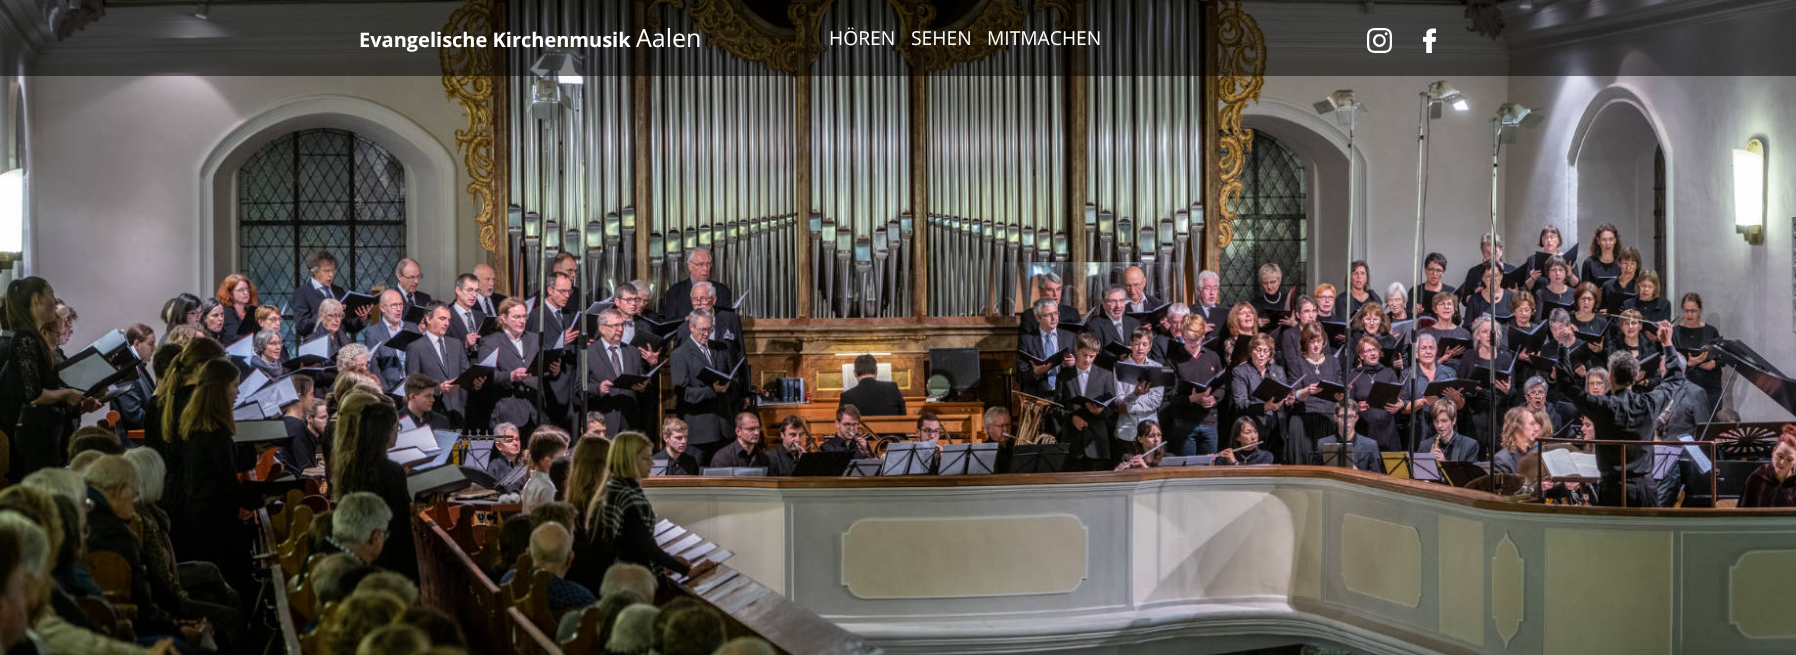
<?xml version="1.0" encoding="UTF-8"?>
<svg xmlns="http://www.w3.org/2000/svg" width="1796" height="655">
    <rect width="100%" height="100%" fill="#FFFFFF"/>
    <image x="0" y="0" width="1796" height="655" href="img_01.png"/>
    <rect x="0" y="0" width="1796" height="76" fill="#000000" fill-opacity="0.5"/>
    <text x="359" y="47" font-family="Open Sans" font-size="20" font-weight="700" fill="#FFFFFF">Evangelische Kirchenmusik</text>
    <text x="636" y="47" font-family="Open Sans" font-size="25" fill="#FFFFFF">Aalen</text>
    <text x="829" y="45" font-family="Open Sans" font-size="19.25" fill="#FFFFFF">HÖREN</text>
    <text x="911" y="45" font-family="Open Sans" font-size="19.25" fill="#FFFFFF">SEHEN</text>
    <text x="987" y="45" font-family="Open Sans" font-size="19.25" fill="#FFFFFF">MITMACHEN</text>
    <image x="1367" y="28" width="25" height="25" href="img_02.png"/>
    <image x="1423" y="28" width="14" height="25" href="img_03.png"/>
</svg>
